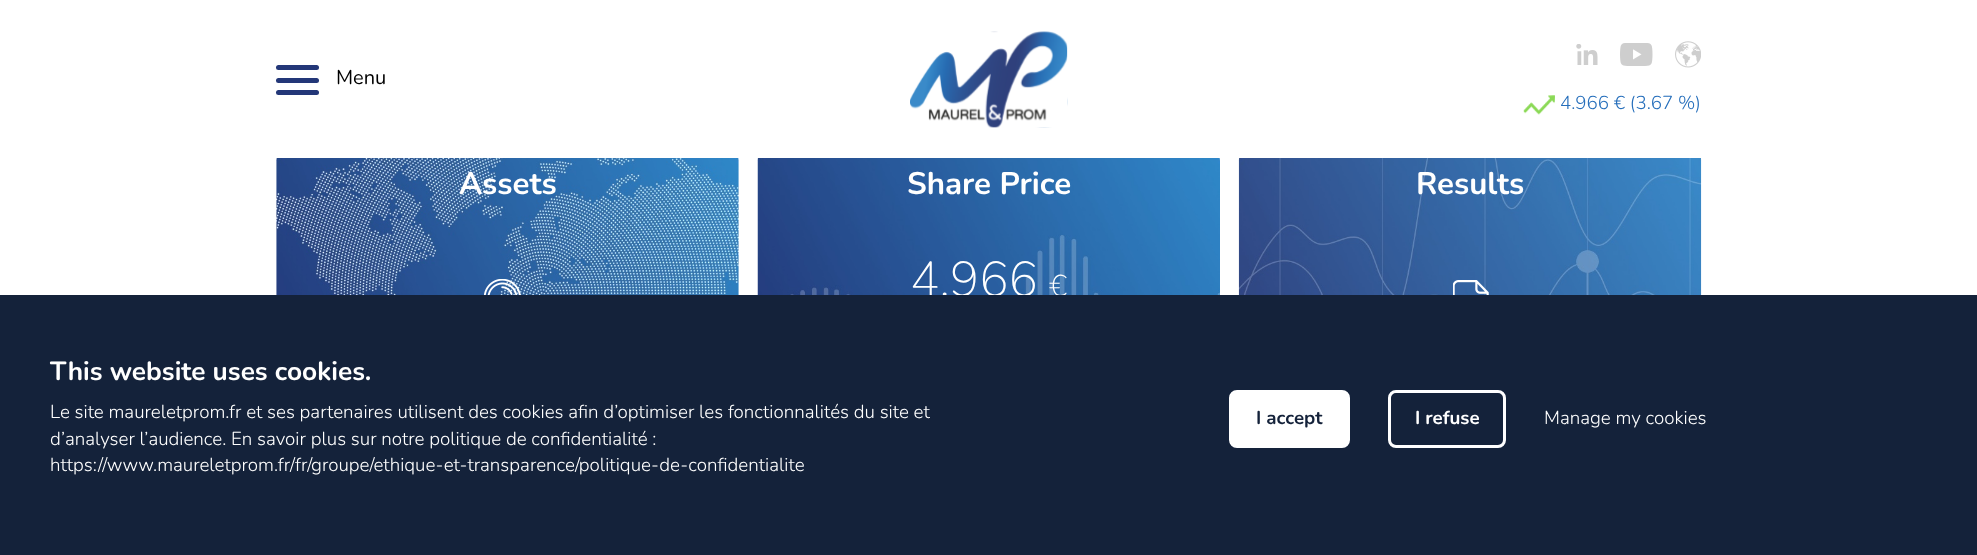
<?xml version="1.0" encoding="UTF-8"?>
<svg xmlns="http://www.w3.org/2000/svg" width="1977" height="555">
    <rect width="100%" height="100%" fill="#FFFFFF"/>
    <rect x="276" y="65" width="43" height="5" rx="2.5" fill="#233778"/>
    <rect x="276" y="78" width="43" height="5" rx="2.5" fill="#233778"/>
    <rect x="276" y="90" width="43" height="5" rx="2.5" fill="#233778"/>
    <text x="336" y="84" font-family="Nunito" font-size="20" fill="#000000">Menu</text>
    <image x="910" y="31" width="158" height="97" href="img_01.png"/>
    <image x="1576" y="44" width="22" height="21" href="img_02.png"/>
    <image x="1620" y="43" width="33" height="23" href="img_03.png"/>
    <image x="1675" y="41" width="26" height="27" href="img_04.png"/>
    <image x="1523" y="95" width="32" height="20" href="img_05.png"/>
    <text x="1560" y="109" font-family="Nunito" font-size="18.75" font-weight="300" fill="#256EBB">4.966 € (3.67 %)</text>
    <image x="276" y="158" width="463" height="137" href="img_06.png"/>
    <text x="459" y="194" font-family="Nunito" font-size="31.25" font-weight="700" fill="#FFFFFF">Assets</text>
    <image x="484" y="279" width="37" height="16" href="img_07.png"/>
    <image x="757" y="158" width="463" height="137" href="img_08.png"/>
    <text x="907" y="194" font-family="Nunito" font-size="31.25" font-weight="700" fill="#FFFFFF">Share Price</text>
    <text x="910" y="296" font-family="Nunito" font-size="49" font-weight="200" fill="#FFFFFF">4.966</text>
    <text x="1049" y="296" font-family="Nunito" font-size="30" font-weight="200" fill="#FFFFFF">€</text>
    <image x="1238" y="158" width="464" height="137" href="img_09.png"/>
    <text x="1416" y="194" font-family="Nunito" font-size="31.25" font-weight="700" fill="#FFFFFF">Results</text>
    <image x="1453" y="280" width="36" height="15" href="img_10.png"/>
    <rect x="0" y="295" width="1977" height="260" fill="#14223A"/>
    <text x="50" y="380" font-family="Nunito" font-size="26.25" font-weight="700" fill="#FFFFFF">This website uses cookies.</text>
    <text font-family="Nunito" font-size="18.75" font-weight="300" fill="#FFFFFF">
        <tspan x="50" y="418">Le site maureletprom.fr et ses partenaires utilisent des cookies afin d’optimiser les fonctionnalités du site et</tspan>
        <tspan x="50" y="445">d’analyser l’audience. En savoir plus sur notre politique de confidentialité :</tspan>
        <tspan x="50" y="471">https://www.maureletprom.fr/fr/groupe/ethique-et-transparence/politique-de-confidentialite</tspan>
    </text>
    <rect x="1230.5" y="391.5" width="118" height="55" rx="6.5" fill="#FFFFFF" stroke="#FFFFFF" stroke-width="3"/>
    <text x="1256" y="424" font-family="Nunito" font-size="18.75" font-weight="700" fill="#14223A">I accept</text>
    <rect x="1389.5" y="391.5" width="115" height="55" rx="6.5" fill="none" stroke="#FFFFFF" stroke-width="3"/>
    <text x="1415" y="424" font-family="Nunito" font-size="18.75" font-weight="700" fill="#FFFFFF">I refuse</text>
    <text x="1544" y="424" font-family="Nunito" font-size="18.75" font-weight="300" fill="#FFFFFF">Manage my cookies</text>
</svg>
